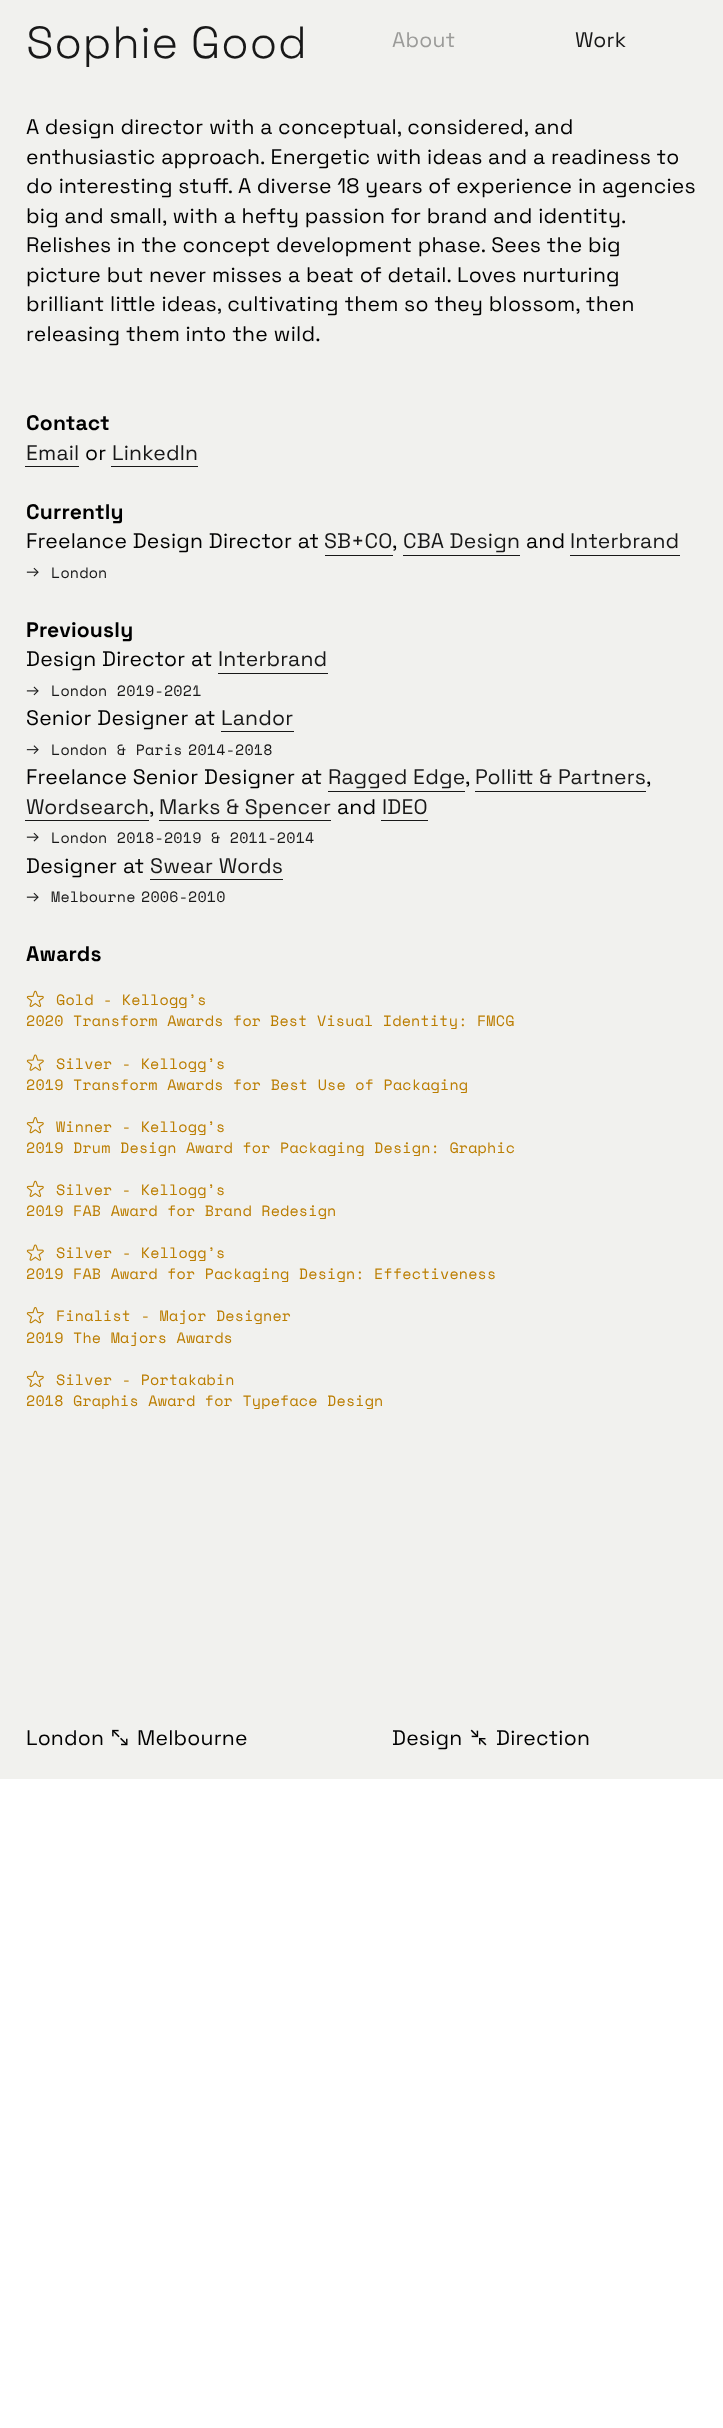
<?xml version="1.0" encoding="UTF-8"?>
<svg xmlns="http://www.w3.org/2000/svg" width="723" height="2428">
    <rect width="100%" height="100%" fill="#FFFFFF"/>
    <rect x="0" y="0" width="723" height="1779" fill="#F1F1EE"/>
    <text x="26" y="58" font-family="Space Grotesk" font-size="45" font-weight="300" letter-spacing="0.5" fill="#181818">Sophie Good</text>
    <text x="392" y="47" font-family="Space Grotesk" font-size="21.1" letter-spacing="0.2" fill="#9B9B99">About</text>
    <text x="575" y="47" font-family="Space Grotesk" font-size="21.1" letter-spacing="0.2" fill="#181818">Work</text>
    <text font-family="Space Grotesk" font-size="21.1" letter-spacing="0.2" fill="#000000">
        <tspan x="26" y="134">A design director with a conceptual, considered, and</tspan>
        <tspan x="26" y="164">enthusiastic approach. Energetic with ideas and a readiness to</tspan>
        <tspan x="26" y="193">do interesting stuff. A diverse 18 years of experience in agencies</tspan>
        <tspan x="26" y="223">big and small, with a hefty passion for brand and identity.</tspan>
        <tspan x="26" y="252">Relishes in the concept development phase. Sees the big</tspan>
        <tspan x="26" y="282">picture but never misses a beat of detail. Loves nurturing</tspan>
        <tspan x="26" y="311">brilliant little ideas, cultivating them so they blossom, then</tspan>
        <tspan x="26" y="341">releasing them into the wild.</tspan>
    </text>
    <text x="26" y="430" font-family="Space Grotesk" font-size="21.1" font-weight="700" letter-spacing="0.2" fill="#000000">Contact</text>
    <text x="26" y="460" font-family="Space Grotesk" font-size="21.1" letter-spacing="0.2" fill="#181818">Email</text>
    <rect x="25" y="466" width="54" height="1" fill="#181818"/>
    <text x="85" y="460" font-family="Space Grotesk" font-size="21.1" letter-spacing="0.2" fill="#000000">or</text>
    <text x="112" y="460" font-family="Space Grotesk" font-size="21.1" letter-spacing="0.2" fill="#181818">LinkedIn</text>
    <rect x="111" y="466" width="87" height="1" fill="#181818"/>
    <text x="26" y="519" font-family="Space Grotesk" font-size="21.1" font-weight="700" letter-spacing="0.2" fill="#000000">Currently</text>
    <text x="26" y="548" font-family="Space Grotesk" font-size="21.1" letter-spacing="0.2" fill="#000000">Freelance Design Director at</text>
    <text x="324" y="548" font-family="Space Grotesk" font-size="21.1" letter-spacing="0.2" fill="#181818">SB+CO</text>
    <rect x="325" y="555" width="68" height="1" fill="#181818"/>
    <text x="392" y="548" font-family="Space Grotesk" font-size="21.1" letter-spacing="0.2" fill="#000000">,</text>
    <text x="403" y="548" font-family="Space Grotesk" font-size="21.1" letter-spacing="0.2" fill="#181818">CBA Design</text>
    <rect x="403" y="555" width="117" height="1" fill="#181818"/>
    <text x="526" y="548" font-family="Space Grotesk" font-size="21.1" letter-spacing="0.2" fill="#000000">and</text>
    <text x="570" y="548" font-family="Space Grotesk" font-size="21.1" letter-spacing="0.2" fill="#181818">Interbrand</text>
    <rect x="570" y="555" width="110" height="1" fill="#181818"/>
    <image x="26" y="567" width="13" height="10" href="img_01.png"/>
    <text x="51" y="578" font-family="Space Mono" font-size="15.05" letter-spacing="0.2" fill="#181818">London</text>
    <text x="26" y="637" font-family="Space Grotesk" font-size="21.1" font-weight="700" letter-spacing="0.2" fill="#000000">Previously</text>
    <text x="26" y="666" font-family="Space Grotesk" font-size="21.1" letter-spacing="0.2" fill="#000000">Design Director at</text>
    <text x="218" y="666" font-family="Space Grotesk" font-size="21.1" letter-spacing="0.2" fill="#181818">Interbrand</text>
    <rect x="218" y="673" width="110" height="1" fill="#181818"/>
    <image x="26" y="686" width="13" height="10" href="img_02.png"/>
    <text x="51" y="696" font-family="Space Mono" font-size="15.05" letter-spacing="0.2" fill="#181818">London 2019-2021</text>
    <text x="26" y="725" font-family="Space Grotesk" font-size="21.1" letter-spacing="0.2" fill="#000000">Senior Designer at</text>
    <text x="221" y="725" font-family="Space Grotesk" font-size="21.1" letter-spacing="0.2" fill="#181818">Landor</text>
    <rect x="221" y="731" width="73" height="1" fill="#181818"/>
    <image x="26" y="745" width="13" height="9" href="img_03.png"/>
    <text x="51" y="755" font-family="Space Mono" font-size="15.05" letter-spacing="0.2" fill="#181818">London &amp; Paris</text>
    <text x="188" y="755" font-family="Space Mono" font-size="15.05" letter-spacing="0.2" fill="#181818">2014-2018</text>
    <text x="26" y="784" font-family="Space Grotesk" font-size="21.1" letter-spacing="0.2" fill="#000000">Freelance Senior Designer at</text>
    <text x="328" y="784" font-family="Space Grotesk" font-size="21.1" letter-spacing="0.2" fill="#181818">Ragged Edge</text>
    <rect x="328" y="791" width="137" height="1" fill="#181818"/>
    <text x="465" y="784" font-family="Space Grotesk" font-size="21.1" letter-spacing="0.2" fill="#000000">,</text>
    <text x="475" y="784" font-family="Space Grotesk" font-size="21.1" letter-spacing="0.2" fill="#181818">Pollitt &amp; Partners</text>
    <rect x="475" y="791" width="171" height="1" fill="#181818"/>
    <text x="646" y="784" font-family="Space Grotesk" font-size="21.1" letter-spacing="0.2" fill="#000000">,</text>
    <text x="26" y="814" font-family="Space Grotesk" font-size="21.1" letter-spacing="0.2" fill="#181818">Wordsearch</text>
    <rect x="25" y="820" width="124" height="1" fill="#181818"/>
    <text x="149" y="814" font-family="Space Grotesk" font-size="21.1" letter-spacing="0.2" fill="#000000">,</text>
    <text x="159" y="814" font-family="Space Grotesk" font-size="21.1" letter-spacing="0.2" fill="#181818">Marks &amp; Spencer</text>
    <rect x="159" y="820" width="172" height="1" fill="#181818"/>
    <text x="337" y="814" font-family="Space Grotesk" font-size="21.1" letter-spacing="0.2" fill="#000000">and</text>
    <text x="382" y="814" font-family="Space Grotesk" font-size="21.1" letter-spacing="0.2" fill="#181818">IDEO</text>
    <rect x="381" y="820" width="47" height="1" fill="#181818"/>
    <image x="26" y="832" width="13" height="10" href="img_01.png"/>
    <text x="51" y="843" font-family="Space Mono" font-size="15.05" letter-spacing="0.2" fill="#181818">London 2018-2019 &amp; 2011-2014</text>
    <text x="26" y="873" font-family="Space Grotesk" font-size="21.1" letter-spacing="0.2" fill="#000000">Designer at</text>
    <text x="150" y="873" font-family="Space Grotesk" font-size="21.1" letter-spacing="0.2" fill="#181818">Swear Words</text>
    <rect x="150" y="879" width="133" height="1" fill="#181818"/>
    <image x="26" y="892" width="13" height="10" href="img_01.png"/>
    <text x="51" y="902" font-family="Space Mono" font-size="15.05" letter-spacing="0.2" fill="#181818">Melbourne</text>
    <text x="141" y="902" font-family="Space Mono" font-size="15.05" letter-spacing="0.2" fill="#181818">2006-2010</text>
    <text x="26" y="961" font-family="Space Grotesk" font-size="21.1" font-weight="700" letter-spacing="0.2" fill="#000000">Awards</text>
    <image x="26" y="990" width="18" height="17" href="img_04.png"/>
    <text x="56" y="1005" font-family="Space Mono" font-size="15.05" letter-spacing="0.2" fill="#BB7D00">Gold - Kellogg’s</text>
    <text x="26" y="1026" font-family="Space Mono" font-size="15.05" letter-spacing="0.2" fill="#BB7D00">2020 Transform Awards for</text>
    <text x="270" y="1026" font-family="Space Mono" font-size="15.05" letter-spacing="0.2" fill="#BB7D00">Best</text>
    <text x="317" y="1026" font-family="Space Mono" font-size="15.05" letter-spacing="0.2" fill="#BB7D00">Visual Identity: FMCG</text>
    <image x="26" y="1054" width="18" height="17" href="img_05.png"/>
    <text x="56" y="1069" font-family="Space Mono" font-size="15.05" letter-spacing="0.2" fill="#BB7D00">Silver - Kellogg’s</text>
    <text x="26" y="1090" font-family="Space Mono" font-size="15.05" letter-spacing="0.2" fill="#BB7D00">2019 Transform Awards for Best Use of Packaging</text>
    <image x="26" y="1117" width="18" height="17" href="img_06.png"/>
    <text x="56" y="1132" font-family="Space Mono" font-size="15.05" letter-spacing="0.2" fill="#BB7D00">Winner - Kellogg’s</text>
    <text x="26" y="1153" font-family="Space Mono" font-size="15.05" letter-spacing="0.2" fill="#BB7D00">2019 Drum Design Award for Packaging Design: Graphic</text>
    <image x="26" y="1180" width="18" height="17" href="img_04.png"/>
    <text x="56" y="1195" font-family="Space Mono" font-size="15.05" letter-spacing="0.2" fill="#BB7D00">Silver - Kellogg’s</text>
    <text x="26" y="1216" font-family="Space Mono" font-size="15.05" letter-spacing="0.2" fill="#BB7D00">2019 FAB Award for Brand Redesign</text>
    <image x="26" y="1244" width="18" height="17" href="img_05.png"/>
    <text x="56" y="1258" font-family="Space Mono" font-size="15.05" letter-spacing="0.2" fill="#BB7D00">Silver</text>
    <text x="122" y="1258" font-family="Space Mono" font-size="15.05" letter-spacing="0.2" fill="#BB7D00">- Kellogg’s</text>
    <text x="26" y="1279" font-family="Space Mono" font-size="15.05" letter-spacing="0.2" fill="#BB7D00">2019 FAB Award for Packaging Design: Effectiveness</text>
    <image x="26" y="1307" width="18" height="17" href="img_06.png"/>
    <text x="56" y="1321" font-family="Space Mono" font-size="15.05" letter-spacing="0.2" fill="#BB7D00">Finalist - Major Designer</text>
    <text x="26" y="1343" font-family="Space Mono" font-size="15.05" letter-spacing="0.2" fill="#BB7D00">2019 The Majors Awards</text>
    <image x="26" y="1370" width="18" height="17" href="img_04.png"/>
    <text x="56" y="1385" font-family="Space Mono" font-size="15.05" letter-spacing="0.2" fill="#BB7D00">Silver - Portakabin</text>
    <text x="26" y="1406" font-family="Space Mono" font-size="15.05" letter-spacing="0.2" fill="#BB7D00">2018 Graphis Award for Typeface Design</text>
    <text x="26" y="1745" font-family="Space Grotesk" font-size="21.1" letter-spacing="0.2" fill="#000000">London</text>
    <image x="112" y="1729" width="16" height="17" href="img_07.png"/>
    <text x="137" y="1745" font-family="Space Grotesk" font-size="21.1" letter-spacing="0.2" fill="#000000">Melbourne</text>
    <text x="392" y="1745" font-family="Space Grotesk" font-size="21.1" letter-spacing="0.2" fill="#000000">Design</text>
    <image x="470" y="1729" width="17" height="17" href="img_08.png"/>
    <text x="496" y="1745" font-family="Space Grotesk" font-size="21.1" letter-spacing="0.2" fill="#000000">Direction</text>
</svg>
